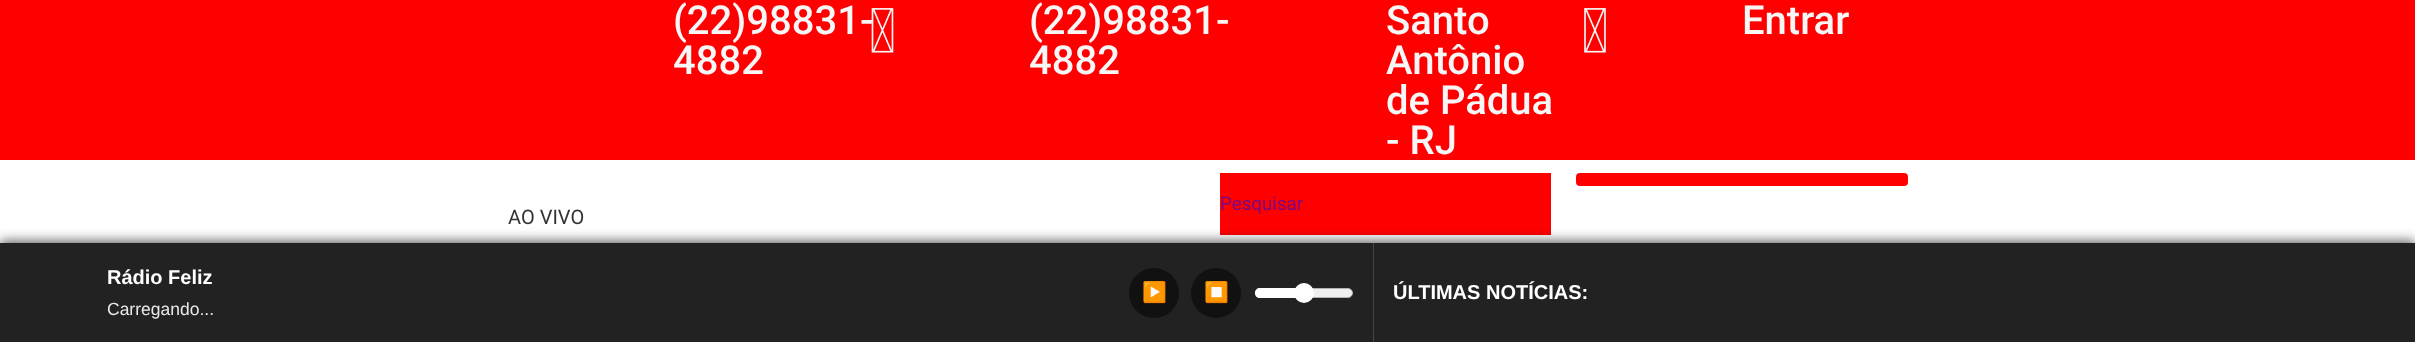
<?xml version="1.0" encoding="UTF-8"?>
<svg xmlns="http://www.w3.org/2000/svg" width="2415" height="342">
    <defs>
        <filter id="blur1" x="-50%" y="-200%" width="200%" height="500%"><feGaussianBlur stdDeviation="6"/></filter>
    </defs>
    <rect width="100%" height="100%" fill="#FFFFFF"/>
    <rect x="0" y="0" width="2415" height="160" fill="#FF0000"/>
    <text font-family="Roboto" font-size="40" font-weight="500" fill="#F7F7F8">
        <tspan x="673" y="34">(22)98831-</tspan>
        <tspan x="673" y="74">4882</tspan>
    </text>
    <image x="871" y="8" width="23" height="45" href="img_01.png"/>
    <text font-family="Roboto" font-size="40" font-weight="500" fill="#F7F7F8">
        <tspan x="1029" y="34">(22)98831-</tspan>
        <tspan x="1029" y="74">4882</tspan>
    </text>
    <text font-family="Roboto" font-size="40" font-weight="500" fill="#F7F7F8">
        <tspan x="1386" y="34">Santo</tspan>
        <tspan x="1386" y="74">Antônio</tspan>
        <tspan x="1386" y="114">de Pádua</tspan>
        <tspan x="1386" y="154">- RJ</tspan>
    </text>
    <image x="1584" y="8" width="22" height="45" href="img_02.png"/>
    <text x="1742" y="34" font-family="Roboto" font-size="40" font-weight="500" fill="#F7F7F8">Entrar</text>
    <rect x="1576" y="173" width="332" height="13" rx="4" fill="#FF0000"/>
    <rect x="1220" y="173" width="331" height="62" fill="#FF0000"/>
    <text x="1220" y="210" font-family="Roboto" font-size="18.75" fill="#760888">Pesquisar</text>
    <text x="508" y="224" font-family="Roboto" font-size="20" fill="#333333">AO VIVO</text>
    <rect x="0" y="248" width="2415" height="92" fill="#000000" fill-opacity="0.5" filter="url(#blur1)"/>
    <rect x="0" y="240" width="2415" height="100" fill="#000000" fill-opacity="0.5" filter="url(#blur1)"/>
    <rect x="0" y="243" width="2415" height="99" fill="#222222"/>
    <text x="107" y="284" font-family="Liberation Sans" font-size="20" font-weight="700" fill="#FFFFFF">Rádio Feliz</text>
    <text x="107" y="315" font-family="Liberation Sans" font-size="17.5" fill="#E9E9E9">Carregando...</text>
    <circle cx="1154" cy="293" r="25" fill="#111111"/>
    <text x="1142" y="299" font-family="Noto Color Emoji" font-size="20" fill="#FFFFFF">▶️</text>
    <circle cx="1216" cy="293" r="25" fill="#111111"/>
    <text x="1204" y="299" font-family="Noto Color Emoji" font-size="20" fill="#FFFFFF">⏹️</text>
    <rect x="1255.5" y="288.5" width="97" height="9" rx="4.5" fill="#EFEFEF" stroke="#B2B2B2"/>
    <path d="M 1260 288 H 1304 V 298 H 1260 C 1257 298 1255 296 1255 293 C 1255 290 1257 288 1260 288 Z" fill="#FFFFFF"/>
    <circle cx="1304" cy="293" r="10" fill="#FFFFFF"/>
    <rect x="1373" y="243" width="1" height="99" fill="#444444"/>
    <text x="1393" y="299" font-family="Liberation Sans" font-size="20" font-weight="700" fill="#FFFFFF">ÚLTIMAS NOTÍCIAS:</text>
</svg>
